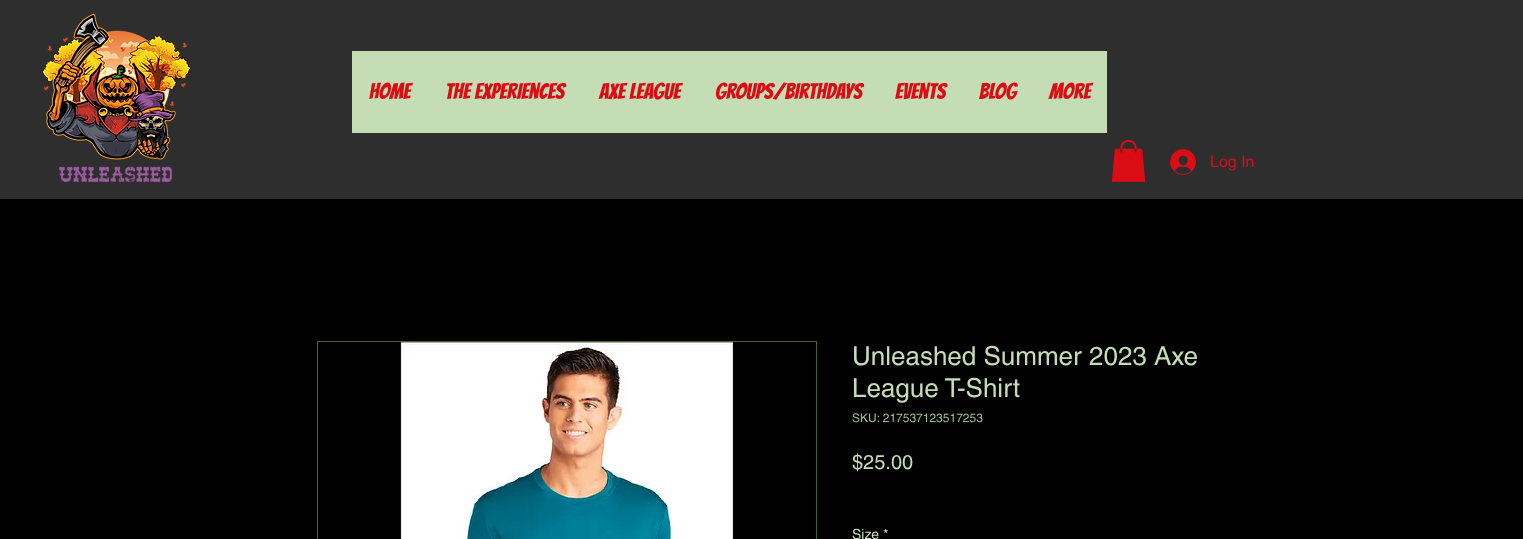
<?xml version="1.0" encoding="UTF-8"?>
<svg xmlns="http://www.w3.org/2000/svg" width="1523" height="539">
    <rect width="100%" height="100%" fill="#000000"/>
    <rect x="0" y="0" width="1523" height="199" fill="#2F2E2E"/>
    <image x="43" y="14" width="147" height="168" href="img_01.png"/>
    <rect x="352" y="51" width="755" height="82" fill="#C5DDB5"/>
    <text x="369" y="99" font-family="Bangers" font-size="22" fill="#DB0D14">HOME</text>
    <text x="445" y="99" font-family="Bangers" font-size="22" fill="#DB0D14">The Experiences</text>
    <text x="599" y="99" font-family="Bangers" font-size="22" fill="#DB0D14">Axe League</text>
    <text x="715" y="99" font-family="Bangers" font-size="22" fill="#DB0D14">Groups/Birthdays</text>
    <text x="895" y="99" font-family="Bangers" font-size="22" fill="#DB0D14">Events</text>
    <text x="979" y="99" font-family="Bangers" font-size="22" fill="#DB0D14">Blog</text>
    <text x="1049" y="99" font-family="Bangers" font-size="22" fill="#DB0D14">More</text>
    <image x="1111" y="140" width="35" height="42" href="img_02.png"/>
    <image x="1170" y="149" width="26" height="26" href="img_03.png"/>
    <text x="1210" y="167" font-family="helvetica" font-size="16" fill="#DB0D14">Log In</text>
    <rect x="317.5" y="341.5" width="499" height="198" fill="none" stroke="#45672F"/>
    <image x="400" y="342" width="334" height="197" href="img_04.png"/>
    <text font-family="helvetica" font-size="26" fill="#C5DDB5">
        <tspan x="852" y="365">Unleashed Summer 2023 Axe</tspan>
        <tspan x="852" y="397">League T-Shirt</tspan>
    </text>
    <text x="852" y="422" font-family="helvetica" font-size="12" fill="#9DBC88">SKU: 217537123517253</text>
    <text x="852" y="469" font-family="helvetica" font-size="20" fill="#C5DDB5">$25.00</text>
    <text x="852" y="539" font-family="helvetica" font-size="14" fill="#C5DDB5">Size *</text>
</svg>
